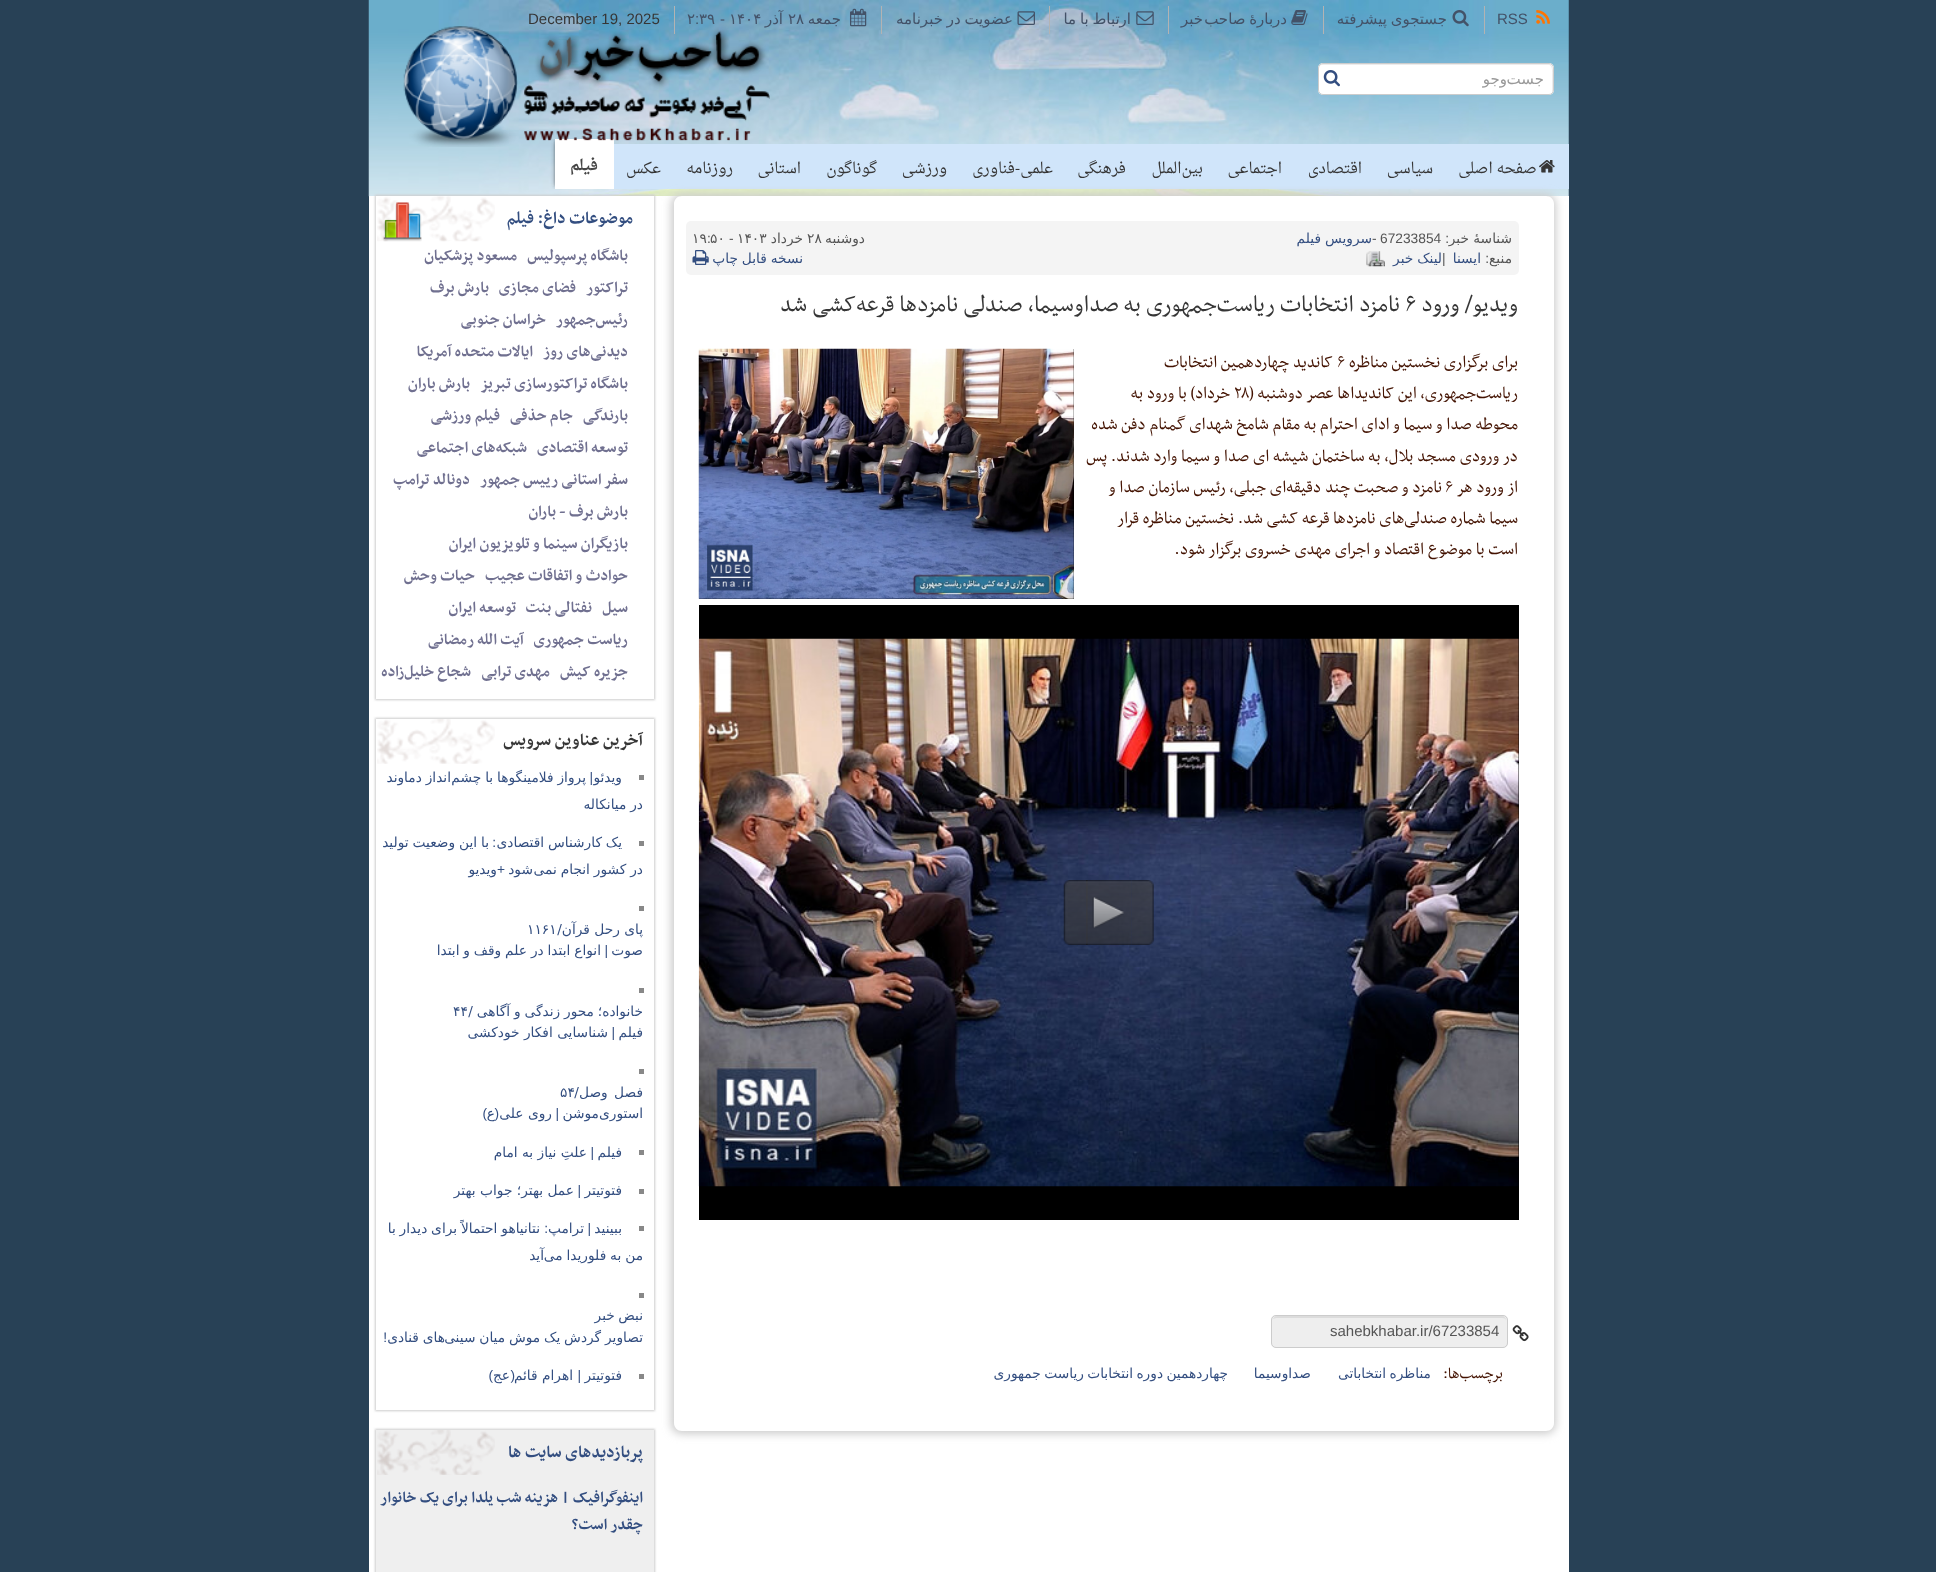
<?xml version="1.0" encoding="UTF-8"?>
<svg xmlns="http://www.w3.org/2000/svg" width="1936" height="1572">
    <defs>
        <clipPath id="clip1"><rect x="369" y="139" width="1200" height="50"/></clipPath>
        <filter id="blur1" x="-50%" y="-200%" width="200%" height="500%"><feGaussianBlur stdDeviation="2.5"/></filter>
        <clipPath id="clip2"><path d="M 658 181 H 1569 V 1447 H 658 Z M 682 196 H 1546 C 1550.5 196 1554 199.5 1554 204 V 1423 C 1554 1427.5 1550.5 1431 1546 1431 H 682 C 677.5 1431 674 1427.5 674 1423 V 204 C 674 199.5 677.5 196 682 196 Z" clip-rule="evenodd"/></clipPath>
        <filter id="blur2" x="-50%" y="-200%" width="200%" height="500%"><feGaussianBlur stdDeviation="4"/></filter>
        <clipPath id="clip3"><path d="M 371 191 H 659 V 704 H 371 Z M 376 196 H 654 V 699 H 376 Z" clip-rule="evenodd"/></clipPath>
        <filter id="blur3" x="-50%" y="-200%" width="200%" height="500%"><feGaussianBlur stdDeviation="1"/></filter>
        <clipPath id="clip4"><path d="M 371 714 H 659 V 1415 H 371 Z M 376 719 H 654 V 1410 H 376 Z" clip-rule="evenodd"/></clipPath>
    </defs>
    <rect width="100%" height="100%" fill="#284156"/>
    <image x="368" y="0" width="1201" height="197" href="img_01.png"/>
    <rect x="1484" y="6" width="1" height="28" fill="#B3B3B3"/>
    <image x="1536" y="10" width="14" height="14" href="img_02.png"/>
    <text x="1497" y="24" font-family="Liberation Sans" font-size="15" fill="#435268">RSS</text>
    <rect x="1323" y="6" width="1" height="28" fill="#B3B3B3"/>
    <image x="1452" y="10" width="17" height="17" href="img_03.png"/>
    <text x="1447" y="24" word-spacing="-1" font-family="DejaVu Sans" font-size="15" direction="rtl" fill="#435268">جستجوی پیشرفته</text>
    <rect x="1168" y="6" width="1" height="28" fill="#B3B3B3"/>
    <image x="1291" y="10" width="17" height="15" href="img_04.png"/>
    <text x="1287" y="24" word-spacing="-1" font-family="DejaVu Sans" font-size="15" direction="rtl" fill="#435268">دربارهٔ صاحب</text>
    <text x="1203" y="24" font-family="DejaVu Sans" font-size="15" direction="rtl" fill="#435268">خبر</text>
    <rect x="1049" y="6" width="1" height="28" fill="#B3B3B3"/>
    <image x="1136" y="11" width="18" height="14" href="img_05.png"/>
    <text x="1131" y="24" word-spacing="-1" font-family="DejaVu Sans" font-size="15" direction="rtl" fill="#435268">ارتباط با ما</text>
    <rect x="881" y="6" width="1" height="28" fill="#B3B3B3"/>
    <image x="1017" y="11" width="18" height="14" href="img_06.png"/>
    <text x="1013" y="24" word-spacing="-1" font-family="DejaVu Sans" font-size="15" direction="rtl" fill="#435268">عضویت در خبرنامه</text>
    <rect x="674" y="6" width="1" height="28" fill="#B3B3B3"/>
    <image x="850" y="8" width="17" height="19" href="img_07.png"/>
    <text x="841" y="24" font-family="DejaVu Sans" font-size="15" direction="rtl" fill="#435268">جمعه</text>
    <text x="788" y="24" font-family="DejaVu Sans" font-size="15" fill="#435268">۲۸</text>
    <text x="783" y="24" font-family="DejaVu Sans" font-size="15" direction="rtl" fill="#435268">آذر</text>
    <text x="729" y="24" font-family="DejaVu Sans" font-size="15" fill="#435268">۱۴۰۴</text>
    <text x="720" y="24" font-family="Liberation Sans" font-size="15" fill="#435268">-</text>
    <text x="699" y="24" font-family="DejaVu Sans" font-size="15" fill="#435268">۳۹</text>
    <text x="695" y="24" font-family="Liberation Sans" font-size="15" fill="#435268">:</text>
    <text x="687" y="24" font-family="DejaVu Sans" font-size="15" fill="#435268">۲</text>
    <text x="528" y="24" font-family="Liberation Sans" font-size="15" fill="#363636">December 19, 2025</text>
    <rect x="1318" y="63" width="236" height="32" rx="5" fill="#FFFFFF"/>
    <path d="M 1322 65 H 1549 C 1553 65 1552 74 1552 76 V 93 L 1553 91 C 1553 88 1554 68 1552 66 L 1550 64 H 1323 C 1320 64 1319 66 1319 69 C 1319 67 1320 65 1322 65 Z" fill="#ECECEC"/>
    <rect x="1318.5" y="63.5" width="235" height="31" rx="4.5" fill="none" stroke="#CCCCCC"/>
    <text x="1544" y="84" font-family="DejaVu Sans" font-size="15" direction="rtl" fill="#999999">جست</text>
    <text x="1507" y="84" font-family="DejaVu Sans" font-size="15" direction="rtl" fill="#999999">وجو</text>
    <image x="1323" y="70" width="17" height="17" href="img_08.png"/>
    <rect x="614" y="144" width="955" height="45" fill="#D0E5FA"/>
    <g clip-path="url(#clip1)">
        <rect x="556" y="141" width="47" height="45" fill="#333333" filter="url(#blur1)"/>
    </g>
    <rect x="555" y="139" width="59" height="50" fill="#FFFFFF"/>
    <image x="403" y="26" width="367" height="121" href="img_09.png"/>
    <image x="1539" y="160" width="16" height="13" href="img_10.png"/>
    <text x="1537" y="173" font-family="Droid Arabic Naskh" font-size="15" direction="rtl" fill="#363636">صفحه اصلی</text>
    <text x="1433" y="173" font-family="Droid Arabic Naskh" font-size="15" direction="rtl" fill="#363636">سیاسی</text>
    <text x="1362" y="173" font-family="Droid Arabic Naskh" font-size="15" direction="rtl" fill="#363636">اقتصادی</text>
    <text x="1282" y="173" font-family="Droid Arabic Naskh" font-size="15" direction="rtl" fill="#363636">اجتماعی</text>
    <text x="1203" y="173" font-family="Droid Arabic Naskh" font-size="15" direction="rtl" fill="#363636">بین‌الملل</text>
    <text x="1126" y="173" font-family="Droid Arabic Naskh" font-size="15" direction="rtl" fill="#363636">فرهنگی</text>
    <text x="1053" y="173" font-family="Droid Arabic Naskh" font-size="15" direction="rtl" fill="#363636">علمی</text>
    <text x="1020" y="173" font-family="Liberation Serif" font-size="15" direction="rtl" fill="#363636">-</text>
    <text x="1015" y="173" font-family="Droid Arabic Naskh" font-size="15" direction="rtl" fill="#363636">فناوری</text>
    <text x="947" y="173" font-family="Droid Arabic Naskh" font-size="15" direction="rtl" fill="#363636">ورزشی</text>
    <text x="877" y="173" font-family="Droid Arabic Naskh" font-size="15" direction="rtl" fill="#363636">گوناگون</text>
    <text x="801" y="173" font-family="Droid Arabic Naskh" font-size="15" direction="rtl" fill="#363636">استانی</text>
    <text x="733" y="173" font-family="Droid Arabic Naskh" font-size="15" direction="rtl" fill="#363636">روزنامه</text>
    <text x="661" y="173" font-family="Droid Arabic Naskh" font-size="15" direction="rtl" fill="#363636">عکس</text>
    <text x="598" y="170" font-family="Droid Arabic Naskh" font-size="15" font-weight="700" direction="rtl" fill="#464646">فیلم</text>
    <rect x="369" y="196" width="1200" height="1376" fill="#FFFFFF"/>
    <g clip-path="url(#clip2)">
        <rect x="671" y="194" width="885" height="1240" rx="10" fill="#CCCCCC" filter="url(#blur2)"/>
    </g>
    <rect x="686" y="221" width="833" height="54" rx="5" fill="#F4F4F4"/>
    <text x="1512" y="243" font-family="DejaVu Sans" font-size="13.75" direction="rtl" fill="#555555">شناسهٔ خبر</text>
    <text x="1449" y="243" font-family="Liberation Sans" font-size="13.75" direction="rtl" fill="#555555">:</text>
    <text x="1380" y="243" font-family="Liberation Sans" font-size="13.75" fill="#555555">67233854</text>
    <text x="1372" y="243" font-family="Liberation Sans" font-size="13.75" fill="#555555">-</text>
    <text x="1372" y="243" font-family="DejaVu Sans" font-size="13.75" direction="rtl" fill="#334E80">سرویس</text>
    <text x="1321" y="243" font-family="DejaVu Sans" font-size="13.75" direction="rtl" fill="#334E80">فیلم</text>
    <text x="865" y="243" font-family="DejaVu Sans" font-size="13.75" direction="rtl" fill="#555555">دوشنبه</text>
    <text x="807" y="243" font-family="DejaVu Sans" font-size="13.75" fill="#555555">۲۸</text>
    <text x="803" y="243" font-family="DejaVu Sans" font-size="13.75" direction="rtl" fill="#555555">خرداد</text>
    <text x="737" y="243" font-family="DejaVu Sans" font-size="13.75" fill="#555555">۱۴۰۳</text>
    <text x="729" y="243" font-family="Liberation Sans" font-size="13.75" fill="#555555">-</text>
    <text x="710" y="243" font-family="DejaVu Sans" font-size="13.75" fill="#555555">۵۰</text>
    <text x="707" y="243" font-family="Liberation Sans" font-size="13.75" fill="#555555">:</text>
    <text x="692" y="243" font-family="DejaVu Sans" font-size="13.75" fill="#555555">۱۹</text>
    <text x="1512" y="263" font-family="DejaVu Sans" font-size="13.75" direction="rtl" fill="#555555">منبع</text>
    <text x="1489" y="263" font-family="Liberation Sans" font-size="13.75" direction="rtl" fill="#555555">:</text>
    <text x="1481" y="263" font-family="DejaVu Sans" font-size="13.75" direction="rtl" fill="#334E80">ایسنا</text>
    <text x="1442" y="263" font-family="Liberation Sans" font-size="13.75" fill="#555555">|</text>
    <text x="1442" y="263" word-spacing="-0.5" font-family="DejaVu Sans" font-size="13.75" direction="rtl" fill="#334E80">لینک خبر</text>
    <image x="1366" y="251" width="19" height="16" href="img_11.png"/>
    <text x="803" y="263" word-spacing="-0.5" font-family="DejaVu Sans" font-size="13.75" direction="rtl" fill="#334E80">نسخه قابل چاپ</text>
    <image x="692" y="250" width="17" height="15" href="img_12.png"/>
    <text x="1518" y="311" font-family="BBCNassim" font-size="27" direction="rtl" fill="#363636">ویدیو/ ورود</text>
    <text x="1405" y="311" font-family="BBCNassim" font-size="27" fill="#363636">۶</text>
    <text x="1400" y="311" font-family="BBCNassim" font-size="27" direction="rtl" fill="#363636">نامزد انتخابات ریاست‌جمهوری به صداوسیما، صندلی نامزدها قرعه‌کشی شد</text>
    <text x="1518" y="367" font-family="BBCNassim" font-size="19.5" direction="rtl" fill="#431200">برای برگزاری نخستین مناظره</text>
    <text x="1337" y="367" font-family="BBCNassim" font-size="19.5" fill="#431200">۶</text>
    <text x="1333" y="367" font-family="BBCNassim" font-size="19.5" direction="rtl" fill="#431200">کاندید چهاردهمین انتخابات</text>
    <rect x="699" y="349" width="375" height="250" fill="#000000"/>
    <image x="698" y="348" width="376" height="251" href="img_13.png"/>
    <text x="1518" y="398" font-family="BBCNassim" font-size="19.5" direction="rtl" fill="#431200">ریاست‌جمهوری، این کاندیداها عصر دوشنبه (</text>
    <text x="1234" y="398" font-family="BBCNassim" font-size="19.5" fill="#431200">۲۸</text>
    <text x="1230" y="398" font-family="BBCNassim" font-size="19.5" direction="rtl" fill="#431200">خرداد) با ورود به</text>
    <text font-family="BBCNassim" font-size="19.5" direction="rtl" fill="#431200">
        <tspan x="1518" y="429">محوطه صدا و سیما و ادای احترام به مقام شامخ شهدای گمنام دفن شده</tspan>
        <tspan x="1518" y="461">در ورودی مسجد بلال، به ساختمان شیشه ای صدا و سیما وارد شدند. پس</tspan>
        <tspan x="1518" y="492">از ورود هر</tspan>
    </text>
    <text x="1445" y="492" font-family="BBCNassim" font-size="19.5" fill="#431200">۶</text>
    <text x="1442" y="492" font-family="BBCNassim" font-size="19.5" direction="rtl" fill="#431200">نامزد و صحبت چند دقیقه‌ای جبلی، رئیس سازمان صدا و</text>
    <text font-family="BBCNassim" font-size="19.5" direction="rtl" fill="#431200">
        <tspan x="1518" y="523">سیما شماره صندلی‌های نامزدها قرعه کشی شد. نخستین مناظره قرار</tspan>
        <tspan x="1518" y="554">است با موضوع اقتصاد و اجرای مهدی خسروی برگزار شود.</tspan>
    </text>
    <rect x="699" y="605" width="820" height="615" fill="#000000"/>
    <image x="698" y="638" width="821" height="549" href="img_14.png"/>
    <image x="1063" y="880" width="91" height="65" href="img_15.png"/>
    <image x="1092" y="897" width="32" height="31" href="img_16.png"/>
    <image x="1512" y="1325" width="17" height="17" href="img_17.png"/>
    <rect x="1271" y="1315" width="237" height="33" rx="5" fill="#EEEEEE"/>
    <path d="M 1276 1318 H 1502 C 1505 1318 1506 1319 1506 1321 V 1320 C 1506 1318 1504 1316 1502 1316 H 1277 C 1275 1316 1274 1317 1273 1319 Z" fill="#DCDCDC"/>
    <rect x="1271.5" y="1315.5" width="236" height="32" rx="4.5" fill="none" stroke="#CCCCCC"/>
    <text x="1330" y="1336" font-family="Liberation Sans" font-size="15" fill="#555555">sahebkhabar.ir/67233854</text>
    <text x="1503" y="1378" font-family="BBCNassim" font-size="18" direction="rtl" fill="#431200">برچسب‌ها:</text>
    <text x="1431" y="1378" word-spacing="-1" font-family="DejaVu Sans" font-size="13.75" direction="rtl" fill="#334E80">مناظره انتخاباتی</text>
    <text x="1311" y="1378" font-family="DejaVu Sans" font-size="13.75" direction="rtl" fill="#334E80">صداوسیما</text>
    <text x="1228" y="1378" word-spacing="-1" font-family="DejaVu Sans" font-size="13.75" direction="rtl" fill="#334E80">چهاردهمین دوره انتخابات ریاست جمهوری</text>
    <g clip-path="url(#clip3)">
        <rect x="375" y="195" width="280" height="505" fill="#CCCCCC" filter="url(#blur3)"/>
    </g>
    <image x="383" y="202" width="39" height="40" href="img_18.png"/>
    <image x="377" y="196" width="118" height="46" href="img_19.png"/>
    <text x="633" y="223" font-family="BBCNassim" font-size="19.5" font-weight="700" direction="rtl" fill="#334E80">موضوعات داغ: فیلم</text>
    <text x="628" y="260" font-family="BBCNassim" font-size="18" font-weight="700" direction="rtl" fill="#707090">باشگاه پرسپولیس</text>
    <text x="517" y="260" font-family="BBCNassim" font-size="18" font-weight="700" direction="rtl" fill="#707090">مسعود پزشکیان</text>
    <text x="628" y="292" font-family="BBCNassim" font-size="18" font-weight="700" direction="rtl" fill="#707090">تراکتور</text>
    <text x="576" y="292" font-family="BBCNassim" font-size="18" font-weight="700" direction="rtl" fill="#707090">فضای مجازی</text>
    <text x="489" y="292" font-family="BBCNassim" font-size="18" font-weight="700" direction="rtl" fill="#707090">بارش برف</text>
    <text x="628" y="324" font-family="BBCNassim" font-size="18" font-weight="700" direction="rtl" fill="#707090">رئیس‌جمهور</text>
    <text x="546" y="324" font-family="BBCNassim" font-size="18" font-weight="700" direction="rtl" fill="#707090">خراسان جنوبی</text>
    <text x="628" y="356" font-family="BBCNassim" font-size="18" font-weight="700" direction="rtl" fill="#707090">دیدنی‌های روز</text>
    <text x="533" y="356" font-family="BBCNassim" font-size="18" font-weight="700" direction="rtl" fill="#707090">ایالات متحده آمریکا</text>
    <text x="628" y="388" font-family="BBCNassim" font-size="18" font-weight="700" direction="rtl" fill="#707090">باشگاه تراکتورسازی تبریز</text>
    <text x="470" y="388" font-family="BBCNassim" font-size="18" font-weight="700" direction="rtl" fill="#707090">بارش باران</text>
    <text x="628" y="420" font-family="BBCNassim" font-size="18" font-weight="700" direction="rtl" fill="#707090">بارندگی</text>
    <text x="573" y="420" font-family="BBCNassim" font-size="18" font-weight="700" direction="rtl" fill="#707090">جام حذفی</text>
    <text x="500" y="420" font-family="BBCNassim" font-size="18" font-weight="700" direction="rtl" fill="#707090">فیلم ورزشی</text>
    <text x="628" y="452" font-family="BBCNassim" font-size="18" font-weight="700" direction="rtl" fill="#707090">توسعه اقتصادی</text>
    <text x="527" y="452" font-family="BBCNassim" font-size="18" font-weight="700" direction="rtl" fill="#707090">شبکه‌های اجتماعی</text>
    <text x="628" y="484" font-family="BBCNassim" font-size="18" font-weight="700" direction="rtl" fill="#707090">سفر استانی رییس جمهور</text>
    <text x="470" y="484" font-family="BBCNassim" font-size="18" font-weight="700" direction="rtl" fill="#707090">دونالد ترامپ</text>
    <text font-family="BBCNassim" font-size="18" font-weight="700" direction="rtl" fill="#707090">
        <tspan x="628" y="516">بارش برف - باران</tspan>
        <tspan x="628" y="548">بازیگران سینما و تلویزیون ایران</tspan>
        <tspan x="628" y="580">حوادث و اتفاقات عجیب</tspan>
    </text>
    <text x="475" y="580" font-family="BBCNassim" font-size="18" font-weight="700" direction="rtl" fill="#707090">حیات وحش</text>
    <text x="628" y="612" font-family="BBCNassim" font-size="18" font-weight="700" direction="rtl" fill="#707090">سیل</text>
    <text x="592" y="612" font-family="BBCNassim" font-size="18" font-weight="700" direction="rtl" fill="#707090">نفتالی بنت</text>
    <text x="516" y="612" font-family="BBCNassim" font-size="18" font-weight="700" direction="rtl" fill="#707090">توسعه ایران</text>
    <text x="628" y="644" font-family="BBCNassim" font-size="18" font-weight="700" direction="rtl" fill="#707090">ریاست جمهوری</text>
    <text x="524" y="644" font-family="BBCNassim" font-size="18" font-weight="700" direction="rtl" fill="#707090">آیت الله رمضانی</text>
    <text x="628" y="676" font-family="BBCNassim" font-size="18" font-weight="700" direction="rtl" fill="#707090">جزیره کیش</text>
    <text x="550" y="676" font-family="BBCNassim" font-size="18" font-weight="700" direction="rtl" fill="#707090">مهدی ترابی</text>
    <text x="471" y="676" font-family="BBCNassim" font-size="18" font-weight="700" direction="rtl" fill="#707090">شجاع خلیل‌زاده</text>
    <g clip-path="url(#clip4)">
        <rect x="375" y="718" width="280" height="693" fill="#CCCCCC" filter="url(#blur3)"/>
    </g>
    <image x="377" y="719" width="118" height="45" href="img_20.png"/>
    <text x="643" y="745" font-family="BBCNassim" font-size="19.5" font-weight="700" direction="rtl" fill="#363636">آخرین عناوین سرویس</text>
    <rect x="639" y="775" width="5" height="5" fill="#888888"/>
    <text x="593" y="782" font-family="Liberation Sans" font-size="13.75" direction="rtl" fill="#334E80">|</text>
    <text x="622" y="782" font-family="DejaVu Sans" font-size="13.75" direction="rtl" fill="#334E80">ویدئو</text>
    <text x="586" y="782" word-spacing="-0.5" font-family="DejaVu Sans" font-size="13.75" direction="rtl" fill="#334E80">پرواز فلامینگوها با چشم</text>
    <text x="451" y="782" word-spacing="-0.5" font-family="DejaVu Sans" font-size="13.75" direction="rtl" fill="#334E80">انداز دماوند</text>
    <text x="643" y="809" word-spacing="-0.5" font-family="DejaVu Sans" font-size="13.75" direction="rtl" fill="#334E80">در میانکاله</text>
    <rect x="639" y="841" width="5" height="5" fill="#888888"/>
    <text x="622" y="847" word-spacing="-0.5" font-family="DejaVu Sans" font-size="13.75" direction="rtl" fill="#334E80">یک کارشناس اقتصادی</text>
    <text x="496" y="847" font-family="Liberation Sans" font-size="13.75" direction="rtl" fill="#334E80">:</text>
    <text x="489" y="847" word-spacing="-0.5" font-family="DejaVu Sans" font-size="13.75" direction="rtl" fill="#334E80">با این وضعیت تولید</text>
    <text x="643" y="874" word-spacing="-0.5" font-family="DejaVu Sans" font-size="13.75" direction="rtl" fill="#334E80">در کشور انجام نمی</text>
    <text x="533" y="874" font-family="DejaVu Sans" font-size="13.75" direction="rtl" fill="#334E80">شود</text>
    <text x="505" y="874" font-family="Liberation Sans" font-size="13.75" direction="rtl" fill="#334E80">+</text>
    <text x="497" y="874" font-family="DejaVu Sans" font-size="13.75" direction="rtl" fill="#334E80">ویدیو</text>
    <rect x="639" y="906" width="5" height="5" fill="#888888"/>
    <text x="643" y="934" font-family="DejaVu Sans" font-size="13.75" direction="rtl" fill="#334E80">پای رحل قرآن/</text>
    <text x="527" y="934" font-family="DejaVu Sans" font-size="13.75" fill="#334E80">۱۱۶۱</text>
    <text x="643" y="955" font-family="DejaVu Sans" font-size="13.75" direction="rtl" fill="#334E80">صوت</text>
    <text x="608" y="955" font-family="Liberation Sans" font-size="13.75" direction="rtl" fill="#334E80">|</text>
    <text x="601" y="955" word-spacing="-0.5" font-family="DejaVu Sans" font-size="13.75" direction="rtl" fill="#334E80">انواع ابتدا در علم وقف</text>
    <text x="470" y="955" word-spacing="-0.5" font-family="DejaVu Sans" font-size="13.75" direction="rtl" fill="#334E80">و ابتدا</text>
    <rect x="639" y="988" width="5" height="5" fill="#888888"/>
    <text x="453" y="1016" font-family="DejaVu Sans" font-size="13.75" fill="#334E80">۴۴</text>
    <text font-family="DejaVu Sans" font-size="13.75" direction="rtl" fill="#334E80">
        <tspan x="643" y="1016" word-spacing="-0.5">خانواده؛ محور زندگی و آگاهی /</tspan>
        <tspan x="643" y="1037">فیلم</tspan>
    </text>
    <text x="615" y="1037" font-family="Liberation Sans" font-size="13.75" direction="rtl" fill="#334E80">|</text>
    <text x="608" y="1037" font-family="DejaVu Sans" font-size="13.75" direction="rtl" fill="#334E80">شناسایی افکار خودکشی</text>
    <rect x="639" y="1069" width="5" height="5" fill="#888888"/>
    <text x="643" y="1097" word-spacing="2" font-family="DejaVu Sans" font-size="13.75" direction="rtl" fill="#334E80">فصل وصل/</text>
    <text x="560" y="1097" font-family="DejaVu Sans" font-size="13.75" fill="#334E80">۵۴</text>
    <text x="643" y="1118" font-family="DejaVu Sans" font-size="13.75" direction="rtl" fill="#334E80">استوری</text>
    <text x="599" y="1118" font-family="DejaVu Sans" font-size="13.75" direction="rtl" fill="#334E80">موشن</text>
    <text x="559" y="1118" font-family="Liberation Sans" font-size="13.75" direction="rtl" fill="#334E80">|</text>
    <text x="552" y="1118" font-family="DejaVu Sans" font-size="13.75" direction="rtl" fill="#334E80">روی علی</text>
    <text x="499" y="1118" font-family="Liberation Sans" font-size="13.75" direction="rtl" fill="#334E80">(</text>
    <text x="495" y="1118" font-family="DejaVu Sans" font-size="13.75" direction="rtl" fill="#334E80">ع</text>
    <text x="487" y="1118" font-family="Liberation Sans" font-size="13.75" direction="rtl" fill="#334E80">)</text>
    <rect x="639" y="1150" width="5" height="5" fill="#888888"/>
    <text x="622" y="1157" font-family="DejaVu Sans" font-size="13.75" direction="rtl" fill="#334E80">فیلم</text>
    <text x="594" y="1157" font-family="Liberation Sans" font-size="13.75" direction="rtl" fill="#334E80">|</text>
    <text x="587" y="1157" font-family="DejaVu Sans" font-size="13.75" direction="rtl" fill="#334E80">علتِ نیاز به امام</text>
    <rect x="639" y="1189" width="5" height="5" fill="#888888"/>
    <text x="622" y="1195" font-family="DejaVu Sans" font-size="13.75" direction="rtl" fill="#334E80">فتوتیتر</text>
    <text x="581" y="1195" font-family="Liberation Sans" font-size="13.75" direction="rtl" fill="#334E80">|</text>
    <text x="574" y="1195" font-family="DejaVu Sans" font-size="13.75" direction="rtl" fill="#334E80">عمل بهتر؛ جواب بهتر</text>
    <rect x="639" y="1226" width="5" height="5" fill="#888888"/>
    <text x="622" y="1233" font-family="DejaVu Sans" font-size="13.75" direction="rtl" fill="#334E80">ببینید</text>
    <text x="591" y="1233" font-family="Liberation Sans" font-size="13.75" direction="rtl" fill="#334E80">|</text>
    <text x="584" y="1233" font-family="DejaVu Sans" font-size="13.75" direction="rtl" fill="#334E80">ترامپ</text>
    <text x="548" y="1233" font-family="Liberation Sans" font-size="13.75" direction="rtl" fill="#334E80">:</text>
    <text x="540" y="1233" word-spacing="-0.5" font-family="DejaVu Sans" font-size="13.75" direction="rtl" fill="#334E80">نتانیاهو احتمالاً برای دیدار با</text>
    <text x="544" y="1260" font-family="DejaVu Sans" font-size="13.75" direction="rtl" fill="#334E80">آید</text>
    <text x="643" y="1260" word-spacing="-0.5" font-family="DejaVu Sans" font-size="13.75" direction="rtl" fill="#334E80">من به فلوریدا می</text>
    <rect x="639" y="1293" width="5" height="5" fill="#888888"/>
    <text font-family="DejaVu Sans" font-size="13.75" direction="rtl" fill="#334E80">
        <tspan x="643" y="1320" word-spacing="-1">نبض خبر</tspan>
        <tspan x="643" y="1342" word-spacing="-0.5">تصاویر گردش یک موش میان سینی</tspan>
    </text>
    <text x="445" y="1342" word-spacing="-0.5" font-family="DejaVu Sans" font-size="13.75" direction="rtl" fill="#334E80">های قنادی</text>
    <text x="387" y="1342" font-family="Liberation Sans" font-size="13.75" direction="rtl" fill="#334E80">!</text>
    <rect x="639" y="1374" width="5" height="5" fill="#888888"/>
    <text x="622" y="1380" font-family="DejaVu Sans" font-size="13.75" direction="rtl" fill="#334E80">فتوتیتر</text>
    <text x="581" y="1380" font-family="Liberation Sans" font-size="13.75" direction="rtl" fill="#334E80">|</text>
    <text x="573" y="1380" font-family="DejaVu Sans" font-size="13.75" direction="rtl" fill="#334E80">اهرام قائم</text>
    <text x="515" y="1380" font-family="Liberation Sans" font-size="13.75" direction="rtl" fill="#334E80">(</text>
    <text x="510" y="1380" font-family="DejaVu Sans" font-size="13.75" direction="rtl" fill="#334E80">عج</text>
    <text x="493" y="1380" font-family="Liberation Sans" font-size="13.75" direction="rtl" fill="#334E80">)</text>
    <rect x="375" y="1429" width="280" height="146" fill="#CCCCCC" filter="url(#blur3)"/>
    <rect x="376" y="1430" width="278" height="142" fill="#EFEFEF"/>
    <image x="377" y="1430" width="118" height="45" href="img_21.png"/>
    <text x="643" y="1457" font-family="BBCNassim" font-size="19.5" font-weight="700" direction="rtl" fill="#334E80">پربازدیدهای سایت ها</text>
    <text font-family="BBCNassim" font-size="18" font-weight="700" direction="rtl" fill="#334E80">
        <tspan x="643" y="1502">اینفوگرافیک | هزینه شب یلدا برای یک خانوار</tspan>
        <tspan x="643" y="1529">چقدر است؟</tspan>
    </text>
</svg>
